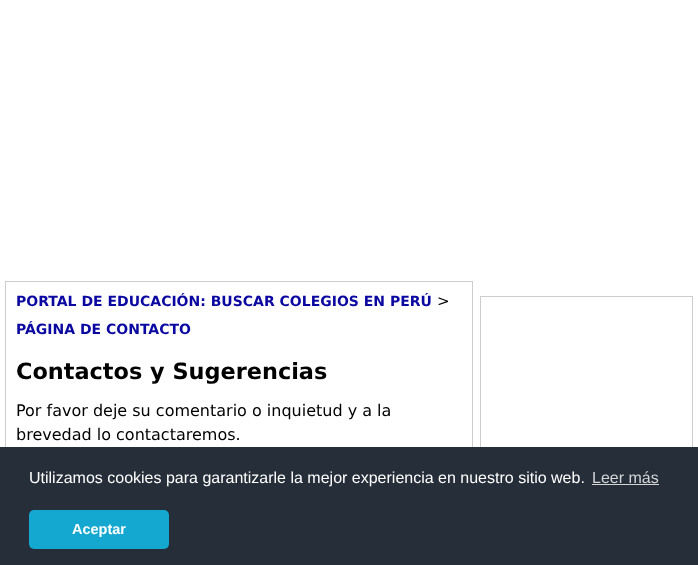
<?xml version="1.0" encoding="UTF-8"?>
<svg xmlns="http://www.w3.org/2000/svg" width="698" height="565">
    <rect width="100%" height="100%" fill="#FFFFFF"/>
    <rect x="5.5" y="281.5" width="467" height="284" fill="none" stroke="#CCCCCC"/>
    <text x="16" y="306" font-family="DejaVu Sans" font-size="14" font-weight="700" fill="#0B08A1">PORTAL DE EDUCACIÓN: BUSCAR COLEGIOS EN PERÚ</text>
    <text x="437" y="306" font-family="DejaVu Sans" font-size="15" fill="#000000">&gt;</text>
    <text x="16" y="334" font-family="DejaVu Sans" font-size="14" font-weight="700" fill="#0B08A1">PÁGINA DE CONTACTO</text>
    <text x="16" y="379" font-family="DejaVu Sans" font-size="22.4" font-weight="700" fill="#000000">Contactos y Sugerencias</text>
    <text font-family="DejaVu Sans" font-size="16" fill="#000000">
        <tspan x="16" y="416">Por favor deje su comentario o inquietud y a la</tspan>
        <tspan x="16" y="440">brevedad lo contactaremos.</tspan>
    </text>
    <rect x="480.5" y="296.5" width="212" height="181" fill="none" stroke="#CCCCCC"/>
    <rect x="0" y="447" width="698" height="118" fill="#252E39"/>
    <text x="29" y="483" font-family="Liberation Sans" font-size="16" fill="#FFFFFF">Utilizamos cookies para garantizarle la mejor experiencia en nuestro sitio web.</text>
    <text x="592" y="483" font-family="Liberation Sans" font-size="16" fill="#D3D5D7">Leer más</text>
    <rect x="592" y="484" width="67" height="1" fill="#D3D5D7"/>
    <rect x="29" y="510" width="140" height="39" rx="5" fill="#14A7D0"/>
    <text x="72" y="534" font-family="Liberation Sans" font-size="14.5" font-weight="700" fill="#FFFFFF">Aceptar</text>
</svg>
